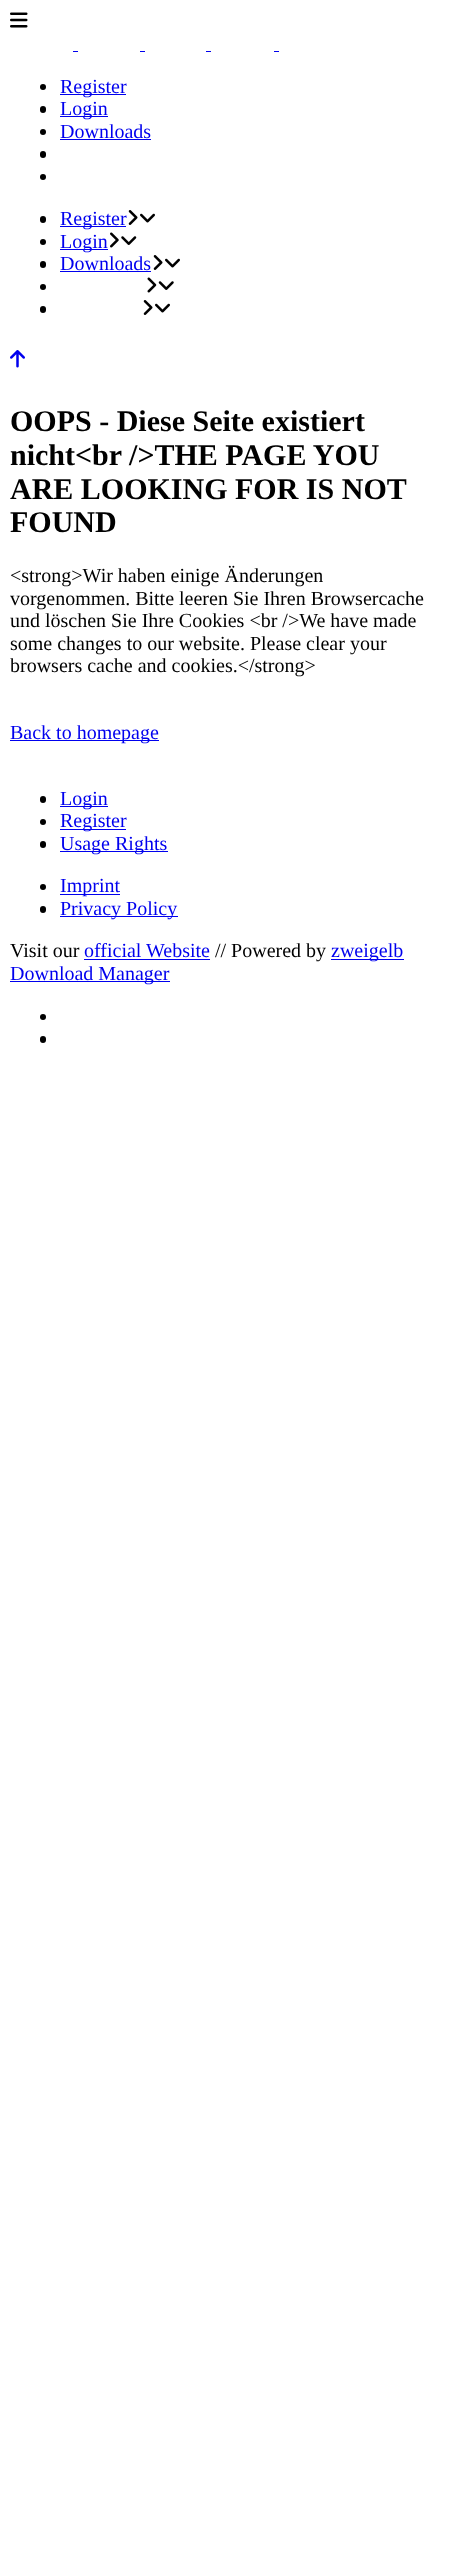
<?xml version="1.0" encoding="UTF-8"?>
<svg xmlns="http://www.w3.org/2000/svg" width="452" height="2556">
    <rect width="100%" height="100%" fill="#FFFFFF"/>
    <image x="10" y="12" width="18" height="16" href="img_01.png"/>
    <rect x="73" y="51" width="5" height="1" fill="#0000EE"/>
    <rect x="140" y="51" width="5" height="1" fill="#0000EE"/>
    <rect x="206" y="51" width="5" height="1" fill="#0000EE"/>
    <rect x="274" y="51" width="5" height="1" fill="#0000EE"/>
    <circle cx="43" cy="87" r="3" fill="#000000"/>
    <rect x="60" y="94" width="66" height="1" fill="#0000EE"/>
    <text x="60" y="93" font-family="Liberation Serif" font-size="20" fill="#0000EE">Register</text>
    <rect x="40" y="106" width="6" height="7" rx="3" fill="#000000"/>
    <rect x="60" y="116" width="48" height="1" fill="#0000EE"/>
    <text x="60" y="115" font-family="Liberation Serif" font-size="20" fill="#0000EE">Login</text>
    <circle cx="43" cy="132" r="3" fill="#000000"/>
    <text x="60" y="138" font-family="Liberation Serif" font-size="20" fill="#0000EE">Downloads</text>
    <rect x="60" y="139" width="91" height="1" fill="#0000EE"/>
    <rect x="40" y="151" width="6" height="7" rx="3" fill="#000000"/>
    <circle cx="43" cy="177" r="3" fill="#000000"/>
    <rect x="40" y="216" width="6" height="7" rx="3" fill="#000000"/>
    <rect x="60" y="226" width="66" height="1" fill="#0000EE"/>
    <text x="60" y="225" font-family="Liberation Serif" font-size="20" fill="#0000EE">Register</text>
    <image x="128" y="210" width="10" height="15" href="img_02.png"/>
    <image x="140" y="213" width="15" height="10" href="img_03.png"/>
    <circle cx="43" cy="242" r="3" fill="#000000"/>
    <rect x="60" y="249" width="48" height="1" fill="#0000EE"/>
    <text x="60" y="248" font-family="Liberation Serif" font-size="20" fill="#0000EE">Login</text>
    <image x="110" y="232" width="9" height="16" href="img_04.png"/>
    <image x="121" y="236" width="16" height="9" href="img_05.png"/>
    <rect x="40" y="261" width="6" height="7" rx="3" fill="#000000"/>
    <text x="60" y="270" font-family="Liberation Serif" font-size="20" fill="#0000EE">Downloads</text>
    <rect x="60" y="271" width="91" height="1" fill="#0000EE"/>
    <image x="153" y="255" width="10" height="15" href="img_02.png"/>
    <image x="165" y="258" width="15" height="10" href="img_03.png"/>
    <circle cx="43" cy="287" r="3" fill="#000000"/>
    <image x="147" y="277" width="10" height="16" href="img_06.png"/>
    <image x="158" y="281" width="16" height="9" href="img_07.png"/>
    <rect x="40" y="306" width="6" height="7" rx="3" fill="#000000"/>
    <image x="143" y="300" width="10" height="15" href="img_02.png"/>
    <image x="155" y="303" width="15" height="10" href="img_03.png"/>
    <image x="10" y="350" width="15" height="18" href="img_08.png"/>
    <text font-family="Liberation Serif" font-size="30" font-weight="700" fill="#000000">
        <tspan x="10" y="431">OOPS - Diese Seite existiert</tspan>
        <tspan x="10" y="465">nicht&lt;br /&gt;THE PAGE YOU</tspan>
        <tspan x="10" y="499">ARE LOOKING FOR IS NOT</tspan>
        <tspan x="10" y="532">FOUND</tspan>
    </text>
    <text font-family="Liberation Serif" font-size="20" fill="#000000">
        <tspan x="10" y="582">&lt;strong&gt;Wir haben einige Änderungen</tspan>
        <tspan x="10" y="605">vorgenommen. Bitte leeren Sie Ihren Browsercache</tspan>
        <tspan x="10" y="627">und löschen Sie Ihre Cookies &lt;br /&gt;We have made</tspan>
        <tspan x="10" y="650">some changes to our website. Please clear your</tspan>
        <tspan x="10" y="672">browsers cache and cookies.&lt;/strong&gt;</tspan>
    </text>
    <rect x="10" y="740" width="149" height="1" fill="#0000EE"/>
    <text x="10" y="739" font-family="Liberation Serif" font-size="20" fill="#0000EE">Back to homepage</text>
    <rect x="40" y="796" width="6" height="7" rx="3" fill="#000000"/>
    <rect x="60" y="806" width="48" height="1" fill="#0000EE"/>
    <text x="60" y="805" font-family="Liberation Serif" font-size="20" fill="#0000EE">Login</text>
    <circle cx="43" cy="822" r="3" fill="#000000"/>
    <rect x="60" y="829" width="66" height="1" fill="#0000EE"/>
    <text x="60" y="827" font-family="Liberation Serif" font-size="20" fill="#0000EE">Register</text>
    <rect x="40" y="841" width="6" height="7" rx="3" fill="#000000"/>
    <rect x="60" y="851" width="108" height="1" fill="#0000EE"/>
    <text x="60" y="850" font-family="Liberation Serif" font-size="20" fill="#0000EE">Usage Rights</text>
    <circle cx="43" cy="887" r="3" fill="#000000"/>
    <rect x="60" y="894" width="60" height="1" fill="#0000EE"/>
    <text x="60" y="892" font-family="Liberation Serif" font-size="20" fill="#0000EE">Imprint</text>
    <rect x="40" y="906" width="6" height="7" rx="3" fill="#000000"/>
    <rect x="60" y="916" width="118" height="1" fill="#0000EE"/>
    <text x="60" y="915" font-family="Liberation Serif" font-size="20" fill="#0000EE">Privacy Policy</text>
    <text x="10" y="957" font-family="Liberation Serif" font-size="20" fill="#000000">Visit our</text>
    <text x="84" y="957" font-family="Liberation Serif" font-size="20" fill="#0000EE">official Website</text>
    <rect x="84" y="959" width="126" height="1" fill="#0000EE"/>
    <text x="215" y="957" font-family="Liberation Serif" font-size="20" fill="#000000">// Powered by</text>
    <rect x="331" y="959" width="73" height="1" fill="#0000EE"/>
    <text x="331" y="957" font-family="Liberation Serif" font-size="20" fill="#0000EE">zweigelb</text>
    <rect x="10" y="981" width="160" height="1" fill="#0000EE"/>
    <text x="10" y="980" font-family="Liberation Serif" font-size="20" fill="#0000EE">Download Manager</text>
    <circle cx="43" cy="1017" r="3" fill="#000000"/>
    <rect x="40" y="1036" width="6" height="7" rx="3" fill="#000000"/>
</svg>
